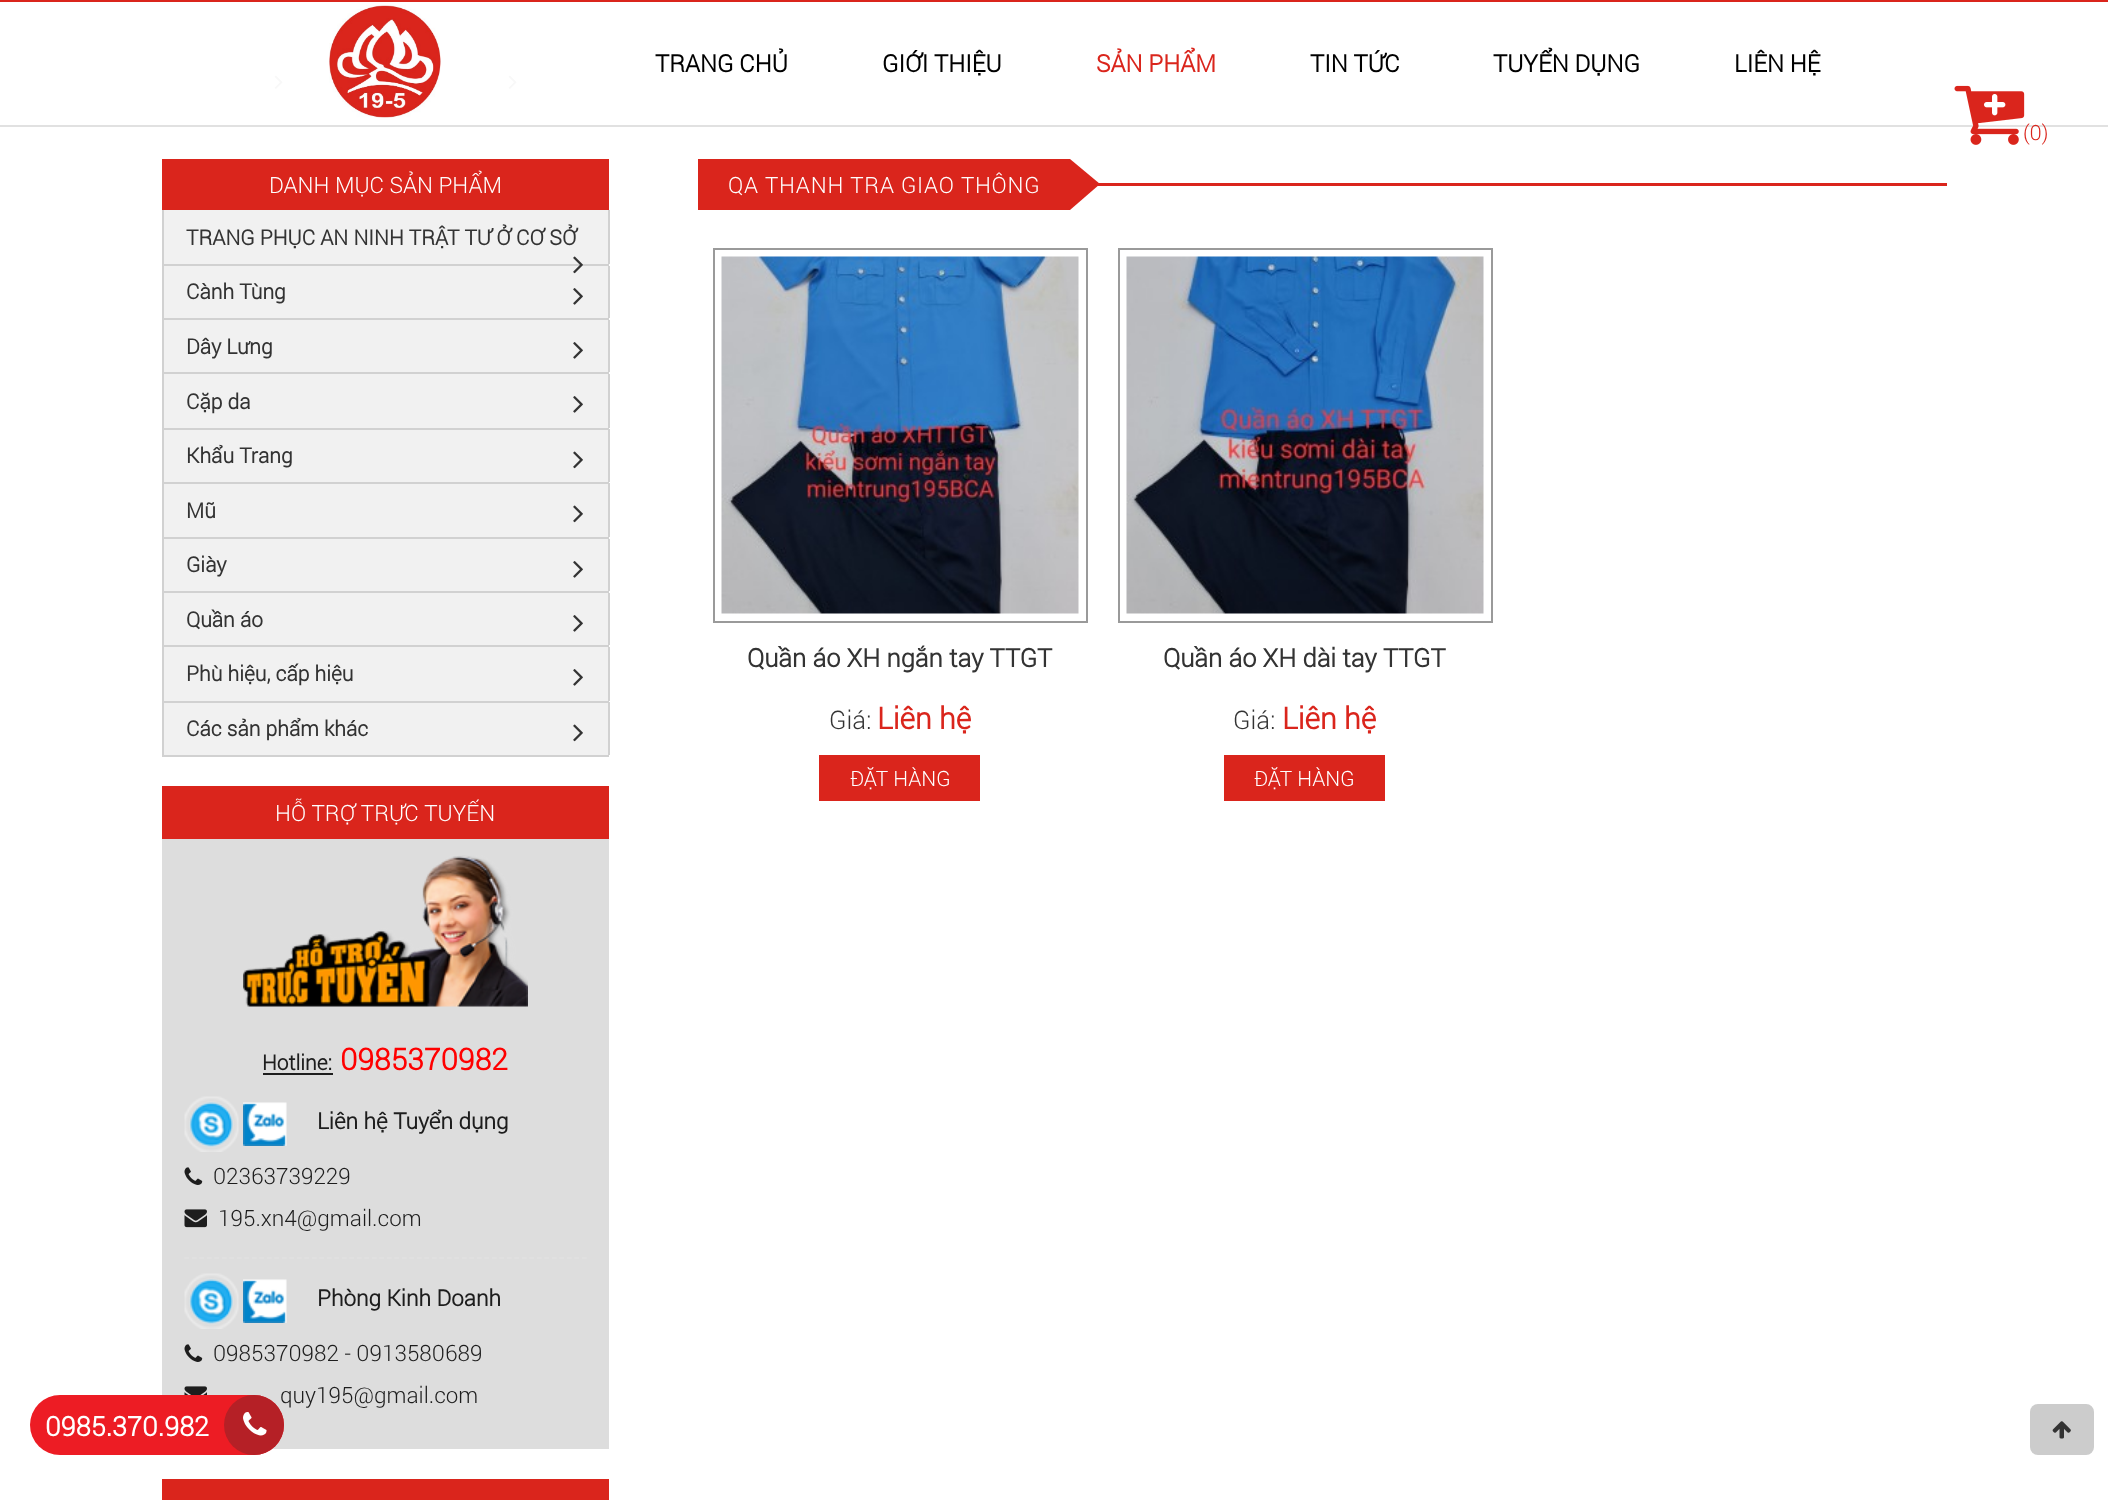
<?xml version="1.0" encoding="UTF-8"?>
<svg xmlns="http://www.w3.org/2000/svg" width="2108" height="1500">
    <rect width="100%" height="100%" fill="#FFFFFF"/>
    <image x="274" y="75" width="9" height="14" href="img_01.png"/>
    <image x="508" y="75" width="9" height="14" href="img_01.png"/>
    <rect x="0" y="125" width="2108" height="2" fill="#E1E1E1"/>
    <rect x="0" y="0" width="2108" height="2" fill="#DA251C"/>
    <image x="329" y="5" width="112" height="113" href="img_02.png"/>
    <text x="655" y="72" font-family="Roboto" font-size="24" font-weight="700" fill="#000000">TRANG CHỦ</text>
    <text x="882" y="72" font-family="Roboto" font-size="24" font-weight="700" fill="#000000">GIỚI THIỆU</text>
    <text x="1096" y="72" font-family="Roboto" font-size="24" font-weight="700" fill="#DA251C">SẢN PHẨM</text>
    <text x="1310" y="72" font-family="Roboto" font-size="24" font-weight="700" fill="#000000">TIN TỨC</text>
    <text x="1493" y="72" font-family="Roboto" font-size="24" font-weight="700" fill="#000000">TUYỂN DỤNG</text>
    <text x="1734" y="72" font-family="Roboto" font-size="24" font-weight="700" fill="#000000">LIÊN HỆ</text>
    <image x="1954" y="85" width="71" height="60" href="img_03.png"/>
    <text x="2023" y="140" font-family="Roboto" font-size="21" font-weight="300" fill="#DA251C">(0)</text>
    <rect x="162" y="159" width="447" height="51" fill="#DA251C"/>
    <text x="269" y="193" font-family="Roboto" font-size="22.5" font-weight="300" fill="#FFFFFF">DANH MỤC SẢN PHẨM</text>
    <rect x="164" y="210" width="444" height="545" fill="#F1F1F1"/>
    <rect x="162" y="264" width="447" height="2" fill="#D1D1D1"/>
    <rect x="608" y="210" width="2" height="54" fill="#D1D1D1"/>
    <rect x="162" y="210" width="2" height="54" fill="#D1D1D1"/>
    <text x="186" y="245" font-family="Roboto" font-size="21" font-weight="700" fill="#333333">TRANG PHỤC AN NINH TRẬT TƯ Ở CƠ SỞ</text>
    <image x="573" y="256" width="10" height="18" href="img_04.png"/>
    <rect x="162" y="318" width="447" height="2" fill="#D1D1D1"/>
    <rect x="608" y="266" width="2" height="52" fill="#D1D1D1"/>
    <rect x="162" y="266" width="2" height="52" fill="#D1D1D1"/>
    <text x="186" y="299" font-family="Roboto" font-size="21" font-weight="700" fill="#333333">Cành Tùng</text>
    <image x="573" y="288" width="10" height="17" href="img_05.png"/>
    <rect x="162" y="372" width="447" height="2" fill="#D1D1D1"/>
    <rect x="608" y="320" width="2" height="52" fill="#D1D1D1"/>
    <rect x="162" y="320" width="2" height="52" fill="#D1D1D1"/>
    <text x="186" y="354" font-family="Roboto" font-size="21" font-weight="700" fill="#333333">Dây Lưng</text>
    <image x="573" y="342" width="10" height="17" href="img_05.png"/>
    <rect x="162" y="428" width="447" height="2" fill="#D1D1D1"/>
    <rect x="608" y="374" width="2" height="54" fill="#D1D1D1"/>
    <rect x="162" y="374" width="2" height="54" fill="#D1D1D1"/>
    <text x="186" y="409" font-family="Roboto" font-size="21" font-weight="700" fill="#333333">Cặp da</text>
    <image x="573" y="396" width="10" height="17" href="img_05.png"/>
    <rect x="162" y="482" width="447" height="2" fill="#D1D1D1"/>
    <rect x="608" y="429" width="2" height="53" fill="#D1D1D1"/>
    <rect x="162" y="429" width="2" height="53" fill="#D1D1D1"/>
    <text x="186" y="463" font-family="Roboto" font-size="21" font-weight="700" fill="#333333">Khẩu Trang</text>
    <image x="573" y="451" width="10" height="18" href="img_06.png"/>
    <rect x="162" y="537" width="447" height="2" fill="#D1D1D1"/>
    <rect x="608" y="483" width="2" height="54" fill="#D1D1D1"/>
    <rect x="162" y="483" width="2" height="54" fill="#D1D1D1"/>
    <text x="186" y="518" font-family="Roboto" font-size="21" font-weight="700" fill="#333333">Mũ</text>
    <image x="573" y="505" width="10" height="18" href="img_06.png"/>
    <rect x="162" y="591" width="447" height="2" fill="#D1D1D1"/>
    <rect x="608" y="539" width="2" height="52" fill="#D1D1D1"/>
    <rect x="162" y="539" width="2" height="52" fill="#D1D1D1"/>
    <text x="186" y="572" font-family="Roboto" font-size="21" font-weight="700" fill="#333333">Giày</text>
    <image x="573" y="561" width="10" height="17" href="img_05.png"/>
    <rect x="162" y="645" width="447" height="2" fill="#D1D1D1"/>
    <rect x="608" y="593" width="2" height="52" fill="#D1D1D1"/>
    <rect x="162" y="593" width="2" height="52" fill="#D1D1D1"/>
    <text x="186" y="627" font-family="Roboto" font-size="21" font-weight="700" fill="#333333">Quần áo</text>
    <image x="573" y="615" width="10" height="17" href="img_05.png"/>
    <rect x="162" y="701" width="447" height="2" fill="#D1D1D1"/>
    <rect x="608" y="647" width="2" height="54" fill="#D1D1D1"/>
    <rect x="162" y="647" width="2" height="54" fill="#D1D1D1"/>
    <text x="186" y="681" font-family="Roboto" font-size="21" font-weight="700" fill="#333333">Phù hiệu, cấp hiệu</text>
    <image x="573" y="669" width="10" height="17" href="img_05.png"/>
    <rect x="162" y="755" width="447" height="2" fill="#D1D1D1"/>
    <rect x="608" y="702" width="2" height="53" fill="#D1D1D1"/>
    <rect x="162" y="702" width="2" height="53" fill="#D1D1D1"/>
    <text x="186" y="736" font-family="Roboto" font-size="21" font-weight="700" fill="#333333">Các sản phẩm khác</text>
    <image x="573" y="724" width="10" height="18" href="img_06.png"/>
    <rect x="162" y="786" width="447" height="53" fill="#DA251C"/>
    <text x="275" y="821" font-family="Roboto" font-size="22.5" font-weight="300" fill="#FFFFFF">HỖ TRỢ TRỰC TUYẾN</text>
    <rect x="162" y="839" width="447" height="610" fill="#DDDDDD"/>
    <image x="243" y="855" width="285" height="152" href="img_07.png"/>
    <text x="262" y="1070" font-family="Roboto" font-size="21" font-weight="700" fill="#1D1D1D">Hotline:</text>
    <rect x="263" y="1073" width="70" height="2" fill="#1D1D1D"/>
    <text x="340" y="1070" font-family="Roboto" font-size="30" font-weight="700" fill="#FF0000">0985370982</text>
    <path d="M 184.5 1258 H 586.5" fill="none" stroke="#E1E1E1" stroke-width="1.5" stroke-dasharray="4.5 3"/>
    <image x="184" y="1096" width="55" height="56" href="img_08.png"/>
    <image x="243" y="1102" width="44" height="44" href="img_09.png"/>
    <text x="317" y="1129" font-family="Roboto" font-size="22.5" font-weight="700" fill="#1D1D1D">Liên hệ Tuyển dụng</text>
    <image x="184" y="1167" width="19" height="18" href="img_10.png"/>
    <text x="213" y="1184" font-family="Roboto" font-size="22.5" font-weight="300" fill="#1D1D1D">02363739229</text>
    <image x="184" y="1209" width="23" height="19" href="img_11.png"/>
    <text x="218" y="1226" font-family="Roboto" font-size="22.5" font-weight="300" fill="#1D1D1D">195.xn4@gmail.com</text>
    <image x="184" y="1273" width="55" height="56" href="img_08.png"/>
    <image x="243" y="1279" width="44" height="44" href="img_09.png"/>
    <text x="317" y="1306" font-family="Roboto" font-size="22.5" font-weight="700" fill="#1D1D1D">Phòng Kinh Doanh</text>
    <image x="184" y="1344" width="19" height="18" href="img_10.png"/>
    <text x="213" y="1361" font-family="Roboto" font-size="22.5" font-weight="300" fill="#1D1D1D">0985370982 - 0913580689</text>
    <image x="184" y="1386" width="23" height="9" href="img_12.png"/>
    <text x="280" y="1403" font-family="Roboto" font-size="22.5" font-weight="300" fill="#1D1D1D">quy195@gmail.com</text>
    <rect x="162" y="1479" width="447" height="21" fill="#DA251C"/>
    <rect x="698" y="159" width="372" height="51" fill="#DA251C"/>
    <text x="728" y="193" font-family="Roboto" font-size="22.5" font-weight="300" letter-spacing="0.75" fill="#FFFFFF">QA THANH TRA GIAO THÔNG</text>
    <rect x="1097" y="183" width="850" height="3" fill="#DA251C"/>
    <path d="M 1070 210 V 159 L 1100 184 Z" fill="#DA251C"/>
    <rect x="714" y="249" width="373" height="373" fill="none" stroke="#9A9A9A" stroke-width="2"/>
    <image x="721" y="256" width="358" height="358" href="img_13.png"/>
    <text x="747" y="667" font-family="Roboto" font-size="25.5" font-weight="700" fill="#333333">Quần áo XH ngắn tay TTGT</text>
    <text x="829" y="729" font-family="Roboto" font-size="25.5" font-weight="300" fill="#333333">Giá:</text>
    <text x="877" y="729" font-family="Roboto" font-size="30" font-weight="700" fill="#DA251C">Liên hệ</text>
    <rect x="819" y="755" width="161" height="46" fill="#DA251C"/>
    <text x="850" y="786" font-family="Roboto" font-size="21" font-weight="300" fill="#FFFFFF">ĐẶT HÀNG</text>
    <rect x="1119" y="249" width="373" height="373" fill="none" stroke="#9A9A9A" stroke-width="2"/>
    <image x="1126" y="256" width="358" height="358" href="img_14.png"/>
    <text x="1163" y="667" font-family="Roboto" font-size="25.5" font-weight="700" fill="#333333">Quần áo XH dài tay TTGT</text>
    <text x="1233" y="729" font-family="Roboto" font-size="25.5" font-weight="300" fill="#333333">Giá:</text>
    <text x="1282" y="729" font-family="Roboto" font-size="30" font-weight="700" fill="#DA251C">Liên hệ</text>
    <rect x="1224" y="755" width="161" height="46" fill="#DA251C"/>
    <text x="1254" y="786" font-family="Roboto" font-size="21" font-weight="300" fill="#FFFFFF">ĐẶT HÀNG</text>
    <rect x="30" y="1395" width="254" height="60" rx="30" fill="#ED1C24"/>
    <text x="45" y="1436" font-family="Roboto" font-size="27" font-weight="700" fill="#FFFFFF">0985.370.982</text>
    <circle cx="254" cy="1425" r="30" fill="#B52026"/>
    <image x="243" y="1412" width="24" height="24" href="img_15.png"/>
    <rect x="2030" y="1404" width="64" height="51" rx="8" fill="#CCCCCC"/>
    <image x="2052" y="1421" width="19" height="18" href="img_16.png"/>
</svg>
